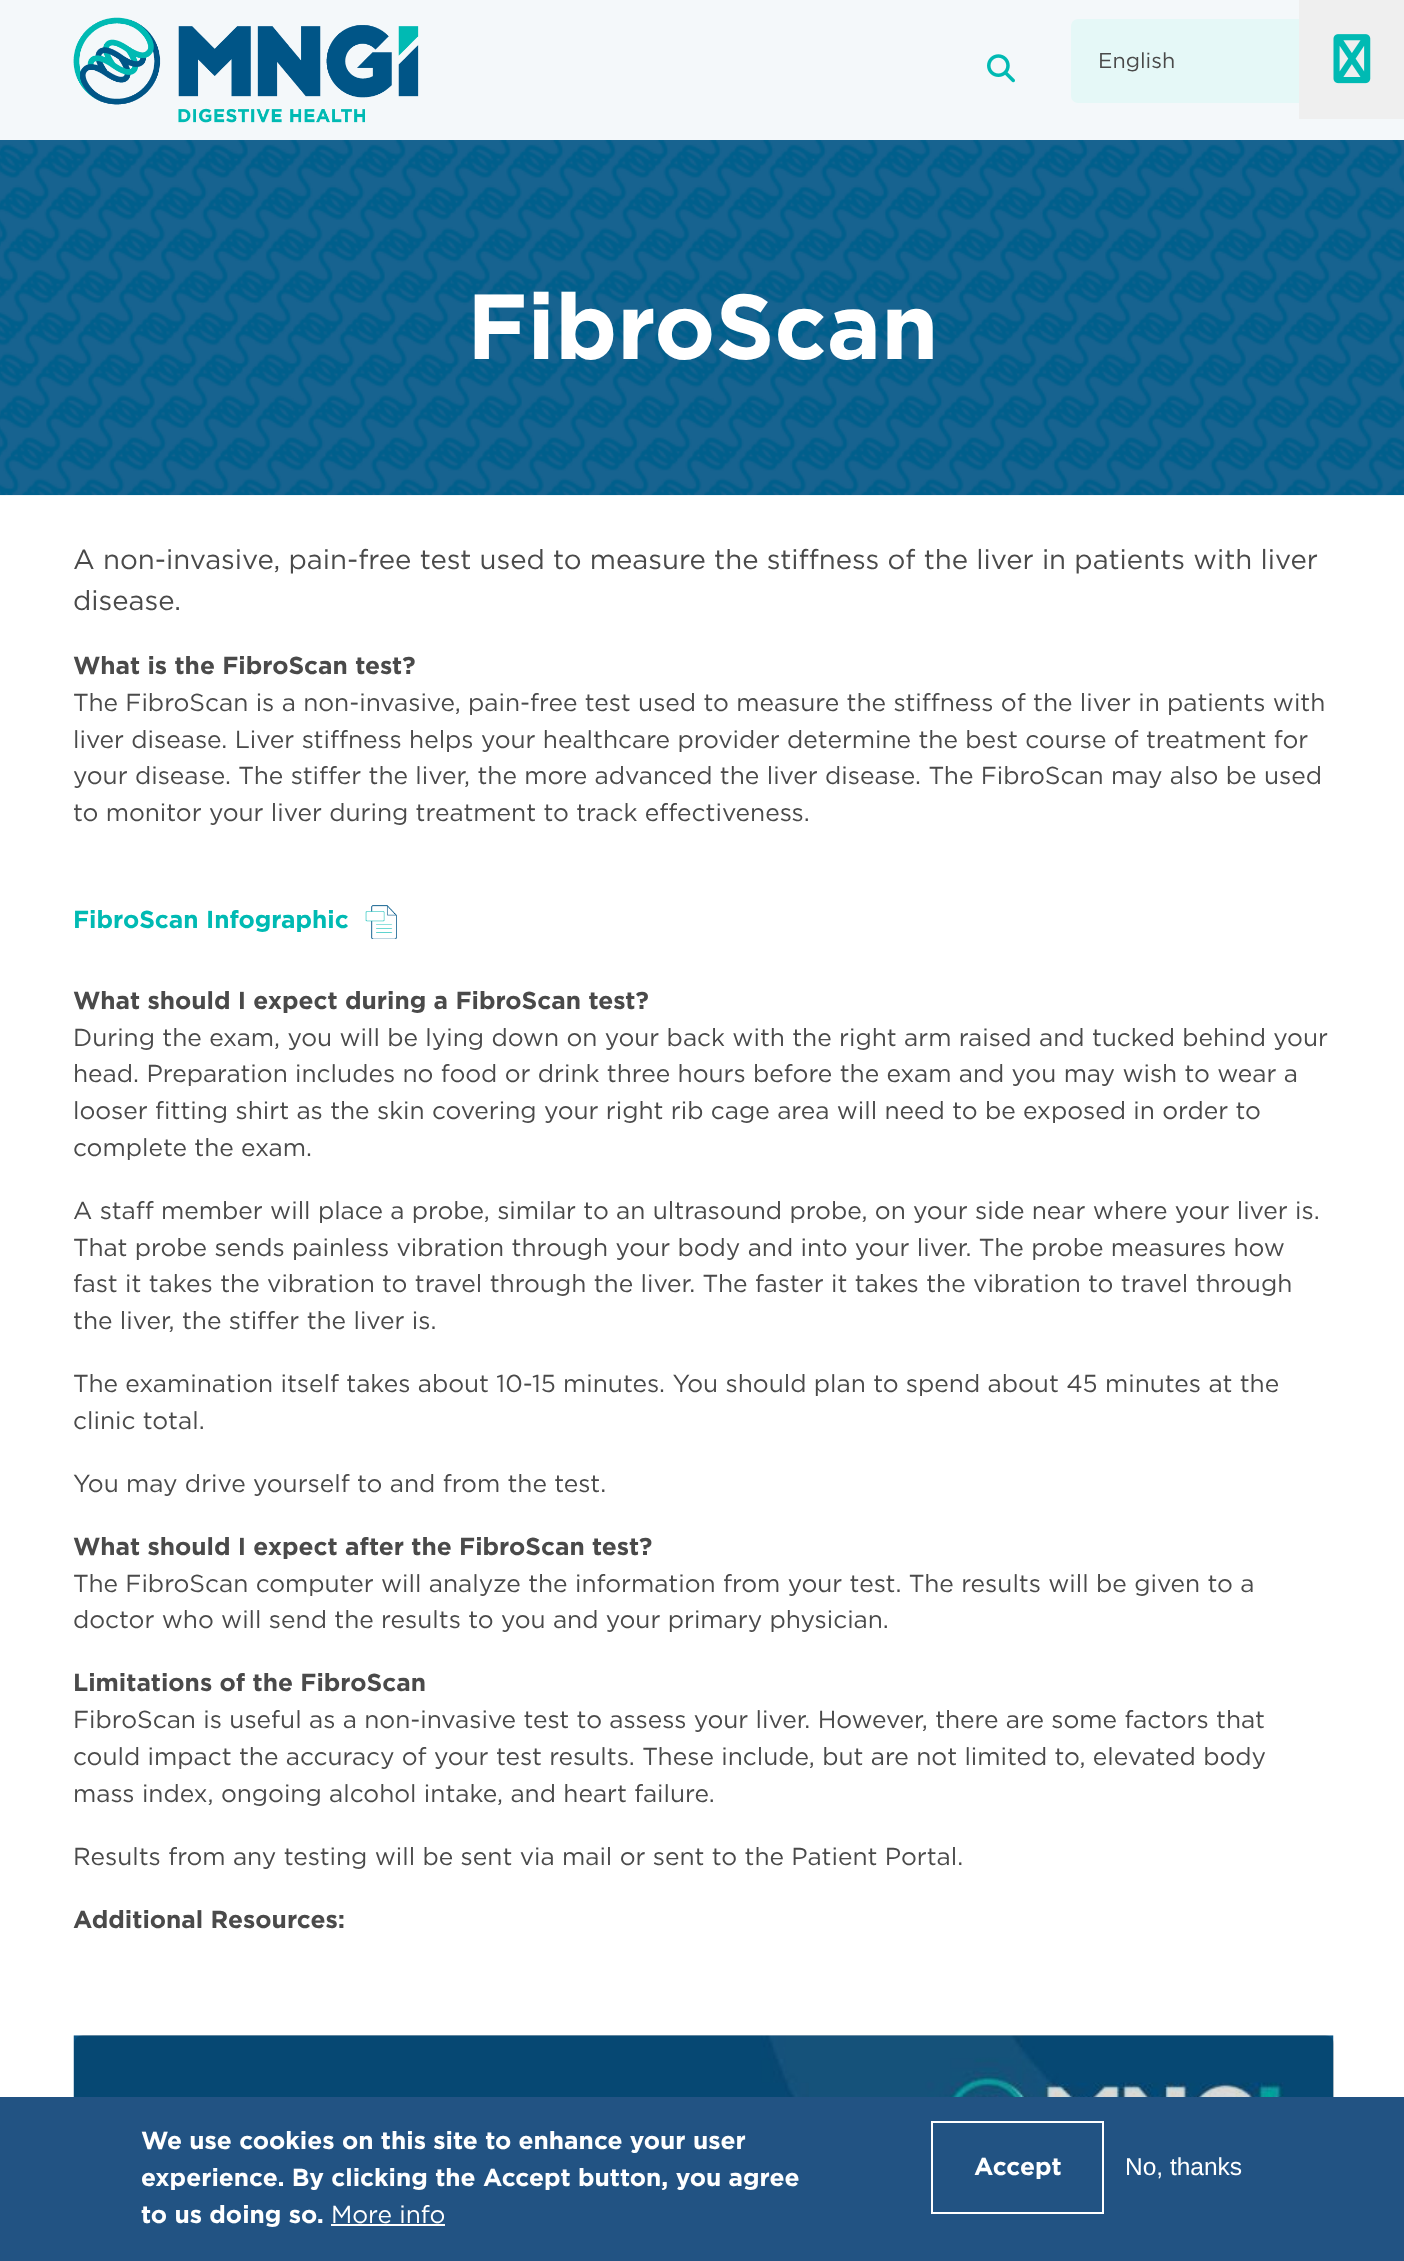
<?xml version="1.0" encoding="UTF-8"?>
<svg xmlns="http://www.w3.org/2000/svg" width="1404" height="2261">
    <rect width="100%" height="100%" fill="#FFFFFF"/>
    <rect x="0" y="0" width="1404" height="140" fill="#F4F8FA"/>
    <image x="73" y="17" width="346" height="106" href="img_01.png"/>
    <image x="987" y="54" width="28" height="29" href="img_02.png"/>
    <rect x="1072" y="20" width="261" height="82" rx="6" fill="#E5F8F7" stroke="#E5F8F7" stroke-width="2"/>
    <text x="1098" y="68" font-family="'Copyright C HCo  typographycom'" font-size="21.5" font-weight="300" fill="#4A4A4A">English</text>
    <image x="0" y="140" width="1404" height="356" href="img_03.png"/>
    <text x="467" y="359" font-family="'Copyright C HCo  typographycom'" font-size="92" fill="#FFFFFF">FibroScan</text>
    <text font-family="'Copyright C HCo  typographycom'" font-size="27.55" font-weight="300" fill="#4A4A4A">
        <tspan x="73" y="569">A non-invasive, pain-free test used to measure the stiffness of the liver in patients with liver</tspan>
        <tspan x="73" y="610">disease.</tspan>
    </text>
    <text x="73" y="674" font-family="'Copyright C HCo  typographycom'" font-size="24.5" fill="#4A4A4A">What is the FibroScan test?</text>
    <text font-family="'Copyright C HCo  typographycom'" font-size="24.5" font-weight="300" fill="#4A4A4A">
        <tspan x="73" y="711">The FibroScan is a non-invasive, pain-free test used to measure the stiffness of the liver in patients with</tspan>
        <tspan x="73" y="748">liver disease. Liver stiffness helps your healthcare provider determine the best course of treatment for</tspan>
        <tspan x="73" y="784">your disease. The stiffer the liver, the more advanced the liver disease. The FibroScan may also be used</tspan>
        <tspan x="73" y="821">to monitor your liver during treatment to track effectiveness.</tspan>
    </text>
    <text x="73" y="928" font-family="'Copyright C HCo  typographycom'" font-size="24.5" fill="#00BAB3">FibroScan Infographic</text>
    <image x="365" y="905" width="33" height="34" href="img_04.png"/>
    <text x="73" y="1009" font-family="'Copyright C HCo  typographycom'" font-size="24.5" fill="#4A4A4A">What should I expect during a FibroScan test?</text>
    <text font-family="'Copyright C HCo  typographycom'" font-size="24.5" font-weight="300" fill="#4A4A4A">
        <tspan x="73" y="1046">During the exam, you will be lying down on your back with the right arm raised and tucked behind your</tspan>
        <tspan x="73" y="1082">head. Preparation includes no food or drink three hours before the exam and you may wish to wear a</tspan>
        <tspan x="73" y="1119">looser fitting shirt as the skin covering your right rib cage area will need to be exposed in order to</tspan>
        <tspan x="73" y="1156">complete the exam.</tspan>
    </text>
    <text font-family="'Copyright C HCo  typographycom'" font-size="24.5" font-weight="300" fill="#4A4A4A">
        <tspan x="73" y="1219">A staff member will place a probe, similar to an ultrasound probe, on your side near where your liver is.</tspan>
        <tspan x="73" y="1256">That probe sends painless vibration through your body and into your liver. The probe measures how</tspan>
        <tspan x="73" y="1292">fast it takes the vibration to travel through the liver. The faster it takes the vibration to travel through</tspan>
        <tspan x="73" y="1329">the liver, the stiffer the liver is.</tspan>
    </text>
    <text font-family="'Copyright C HCo  typographycom'" font-size="24.5" font-weight="300" fill="#4A4A4A">
        <tspan x="73" y="1392">The examination itself takes about 10-15 minutes. You should plan to spend about 45 minutes at the</tspan>
        <tspan x="73" y="1429">clinic total.</tspan>
    </text>
    <text x="73" y="1492" font-family="'Copyright C HCo  typographycom'" font-size="24.5" font-weight="300" fill="#4A4A4A">You may drive yourself to and from the test.</text>
    <text x="73" y="1555" font-family="'Copyright C HCo  typographycom'" font-size="24.5" fill="#4A4A4A">What should I expect after the FibroScan test?</text>
    <text font-family="'Copyright C HCo  typographycom'" font-size="24.5" font-weight="300" fill="#4A4A4A">
        <tspan x="73" y="1592">The FibroScan computer will analyze the information from your test. The results will be given to a</tspan>
        <tspan x="73" y="1628">doctor who will send the results to you and your primary physician.</tspan>
    </text>
    <text x="73" y="1691" font-family="'Copyright C HCo  typographycom'" font-size="24.5" fill="#4A4A4A">Limitations of the FibroScan</text>
    <text font-family="'Copyright C HCo  typographycom'" font-size="24.5" font-weight="300" fill="#4A4A4A">
        <tspan x="73" y="1728">FibroScan is useful as a non-invasive test to assess your liver. However, there are some factors that</tspan>
        <tspan x="73" y="1765">could impact the accuracy of your test results. These include, but are not limited to, elevated body</tspan>
        <tspan x="73" y="1802">mass index, ongoing alcohol intake, and heart failure.</tspan>
    </text>
    <text x="73" y="1865" font-family="'Copyright C HCo  typographycom'" font-size="24.5" font-weight="300" fill="#4A4A4A">Results from any testing will be sent via mail or sent to the Patient Portal.</text>
    <text x="73" y="1928" font-family="'Copyright C HCo  typographycom'" font-size="24.5" fill="#4A4A4A">Additional Resources:</text>
    <image x="73" y="2035" width="1261" height="62" href="img_05.png"/>
    <rect x="74" y="2035" width="1260" height="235" rx="9" fill="#000000" fill-opacity="0.14"/>
    <rect x="1299" y="0" width="105" height="119" fill="#EFEFEF"/>
    <image x="1333" y="34" width="38" height="50" href="img_06.png"/>
    <rect x="0" y="2097" width="1404" height="164" fill="#225383"/>
    <text font-family="'Copyright C HCo  typographycom'" font-size="24.5" fill="#FFFFFF">
        <tspan x="141" y="2149">We use cookies on this site to enhance your user</tspan>
        <tspan x="141" y="2186">experience. By clicking the Accept button, you agree</tspan>
        <tspan x="141" y="2223">to us doing so.</tspan>
    </text>
    <text x="331" y="2223" font-family="'Copyright C HCo  typographycom'" font-size="24.5" font-weight="300" fill="#FFFFFF">More info</text>
    <rect x="331" y="2224" width="114" height="2" fill="#FFFFFF"/>
    <rect x="932" y="2122" width="171" height="91" fill="none" stroke="#FFFFFF" stroke-width="2"/>
    <text x="974" y="2175" font-family="'Copyright C HCo  typographycom'" font-size="24.5" fill="#FFFFFF">Accept</text>
    <text x="1125" y="2175" font-family="Liberation Sans" font-size="24.5" fill="#FFFFFF">No, thanks</text>
</svg>
